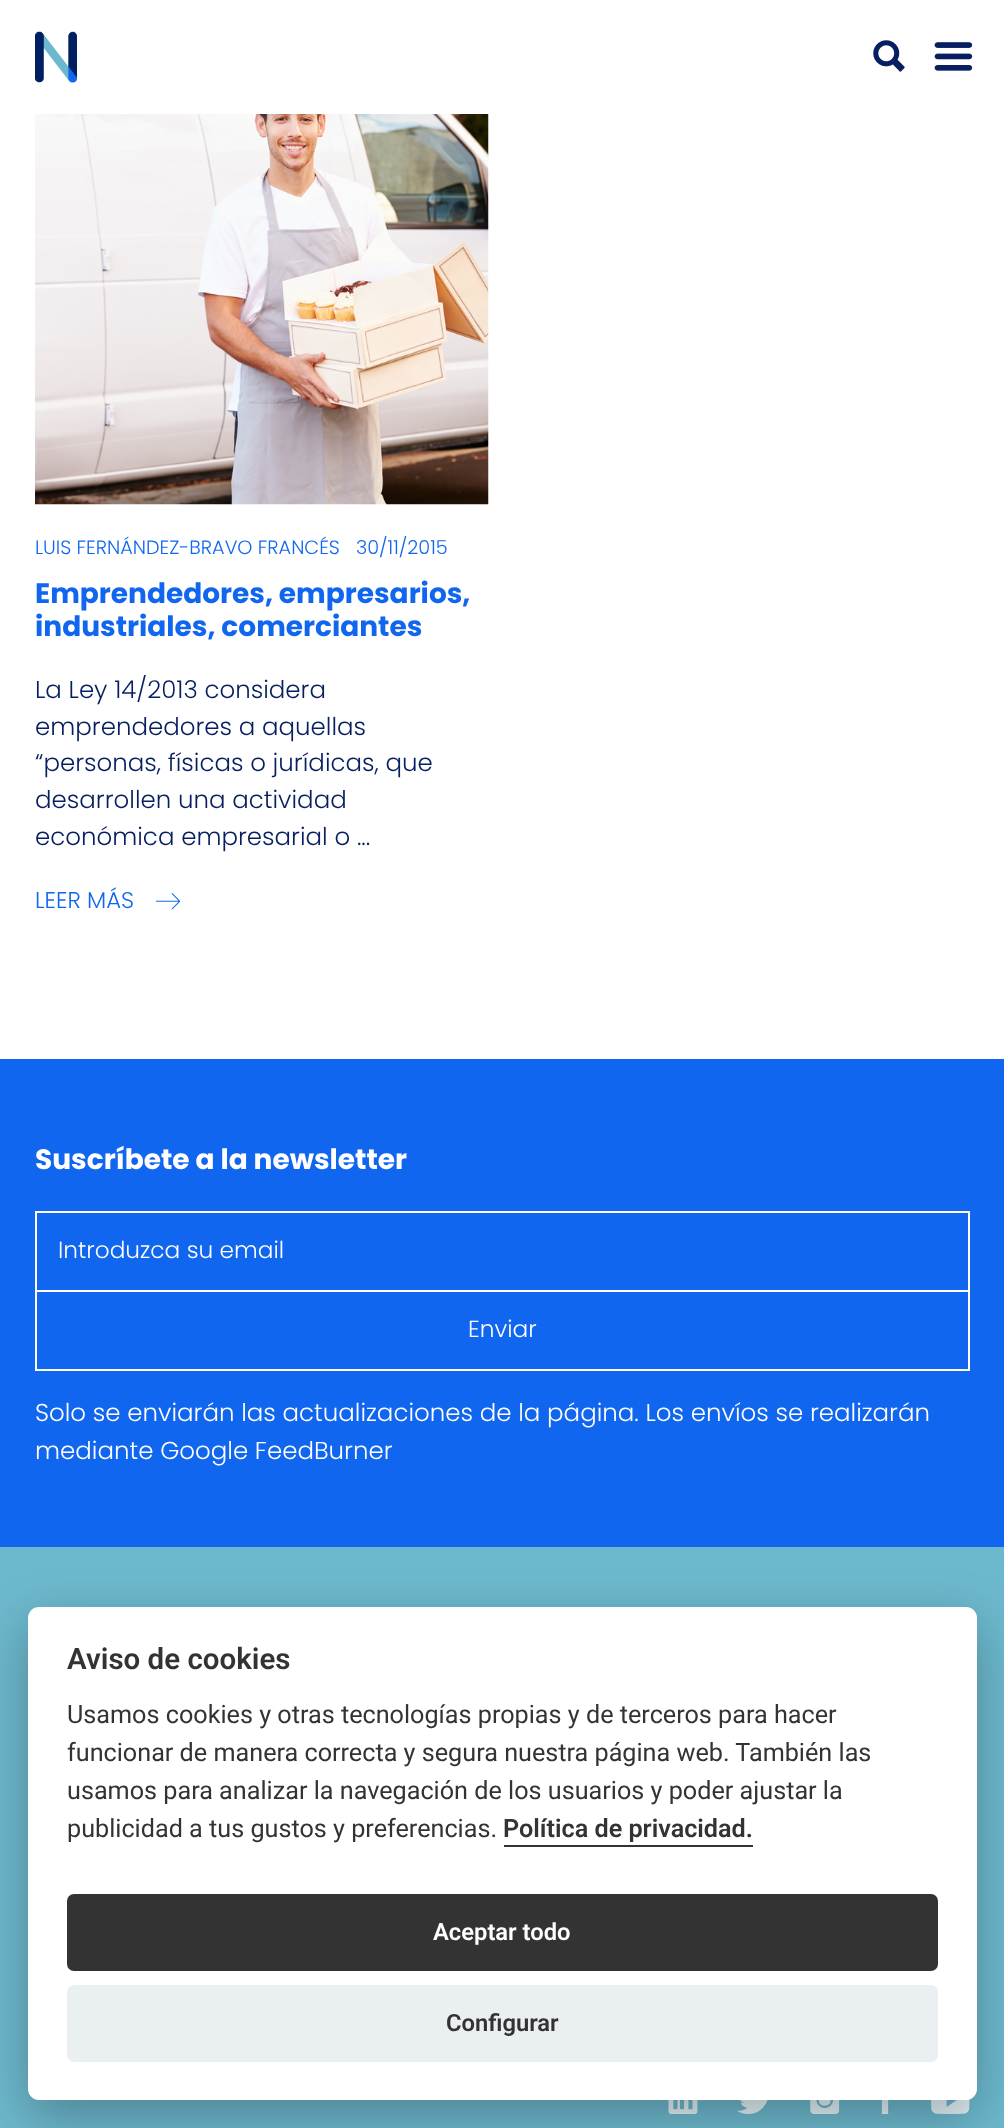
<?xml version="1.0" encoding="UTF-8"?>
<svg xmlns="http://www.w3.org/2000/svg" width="1004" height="2128">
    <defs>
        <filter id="blur1" x="-50%" y="-200%" width="200%" height="500%"><feGaussianBlur stdDeviation="26"/></filter>
    </defs>
    <rect width="100%" height="100%" fill="#FFFFFF"/>
    <image x="35" y="31" width="42" height="52" href="img_01.png"/>
    <image x="873" y="40" width="32" height="32" href="img_02.png"/>
    <image x="934" y="42" width="39" height="29" href="img_03.png"/>
    <image x="35" y="114" width="454" height="391" href="img_04.png"/>
    <text x="35" y="554" font-family="Poppins" font-size="19.25" font-weight="300" fill="#1166EF">LUIS FERNÁNDEZ-BRAVO FRANCÉS</text>
    <text x="356" y="554" font-family="Poppins" font-size="19.25" font-weight="300" fill="#1166EF">30/11/2015</text>
    <text font-family="Poppins" font-size="28" font-weight="700" fill="#1166EF">
        <tspan x="35" y="603">Emprendedores, empresarios,</tspan>
        <tspan x="35" y="636">industriales, comerciantes</tspan>
    </text>
    <text font-family="Poppins" font-size="24.5" font-weight="300" fill="#071F60">
        <tspan x="35" y="698">La Ley 14/2013 considera</tspan>
        <tspan x="35" y="735">emprendedores a aquellas</tspan>
        <tspan x="35" y="771">“personas, físicas o jurídicas, que</tspan>
        <tspan x="35" y="808">desarrollen una actividad</tspan>
        <tspan x="35" y="845">económica empresarial o ...</tspan>
    </text>
    <text x="35" y="908" font-family="Poppins" font-size="22.75" font-weight="300" fill="#1166EF">LEER MÁS</text>
    <image x="156" y="893" width="24" height="17" href="img_05.png"/>
    <rect x="0" y="1059" width="1004" height="488" fill="#1166EF"/>
    <text x="35" y="1169" font-family="Poppins" font-size="28" font-weight="700" fill="#FFFFFF">Suscríbete a la newsletter</text>
    <rect x="36" y="1212" width="933" height="79" fill="none" stroke="#FFFFFF" stroke-width="2"/>
    <text x="58" y="1258" font-family="Poppins" font-size="23.25" font-weight="300" fill="#FFFFFF">Introduzca su email</text>
    <rect x="968" y="1292" width="2" height="78" fill="#FFFFFF"/>
    <rect x="35" y="1369" width="935" height="2" fill="#FFFFFF"/>
    <rect x="35" y="1292" width="2" height="78" fill="#FFFFFF"/>
    <text x="468" y="1337" font-family="Poppins" font-size="23.25" font-weight="300" fill="#FFFFFF">Enviar</text>
    <text font-family="Poppins" font-size="24.5" font-weight="300" fill="#FFFFFF">
        <tspan x="35" y="1421">Solo se enviarán las actualizaciones de la página. Los envíos se realizarán</tspan>
        <tspan x="35" y="1459">mediante Google FeedBurner</tspan>
    </text>
    <rect x="0" y="1547" width="1004" height="581" fill="#6CB8CD"/>
    <image x="668" y="2100" width="30" height="14" href="img_06.png"/>
    <image x="737" y="2100" width="31" height="14" href="img_07.png"/>
    <image x="810" y="2100" width="30" height="14" href="img_08.png"/>
    <image x="881" y="2100" width="8" height="14" href="img_09.png"/>
    <image x="931" y="2099" width="39" height="15" href="img_10.png"/>
    <rect x="28" y="1624" width="949" height="494" rx="11" fill="#020203" fill-opacity="0.28" filter="url(#blur1)"/>
    <rect x="28" y="1607" width="949" height="493" rx="11" fill="#FFFFFF"/>
    <text x="67" y="1669" font-family="Roboto" font-size="29.5" font-weight="600" fill="#333333">Aviso de cookies</text>
    <text font-family="Roboto" font-size="25.2" fill="#333333">
        <tspan x="67" y="1723">Usamos cookies y otras tecnologías propias y de terceros para hacer</tspan>
        <tspan x="67" y="1761">funcionar de manera correcta y segura nuestra página web. También las</tspan>
        <tspan x="67" y="1799">usamos para analizar la navegación de los usuarios y poder ajustar la</tspan>
        <tspan x="67" y="1837">publicidad a tus gustos y preferencias.</tspan>
    </text>
    <text x="503" y="1837" font-family="Roboto" font-size="25.2" font-weight="600" fill="#333333">Política de privacidad.</text>
    <rect x="504" y="1845" width="249" height="2" fill="#333333"/>
    <rect x="67" y="1894" width="871" height="77" rx="7" fill="#333333"/>
    <text x="433" y="1940" font-family="Roboto" font-size="23.75" font-weight="600" fill="#FFFFFF">Aceptar todo</text>
    <rect x="67" y="1985" width="871" height="77" rx="7" fill="#EAEFF2"/>
    <text x="446" y="2031" font-family="Roboto" font-size="23.75" font-weight="600" fill="#333333">Configurar</text>
</svg>
